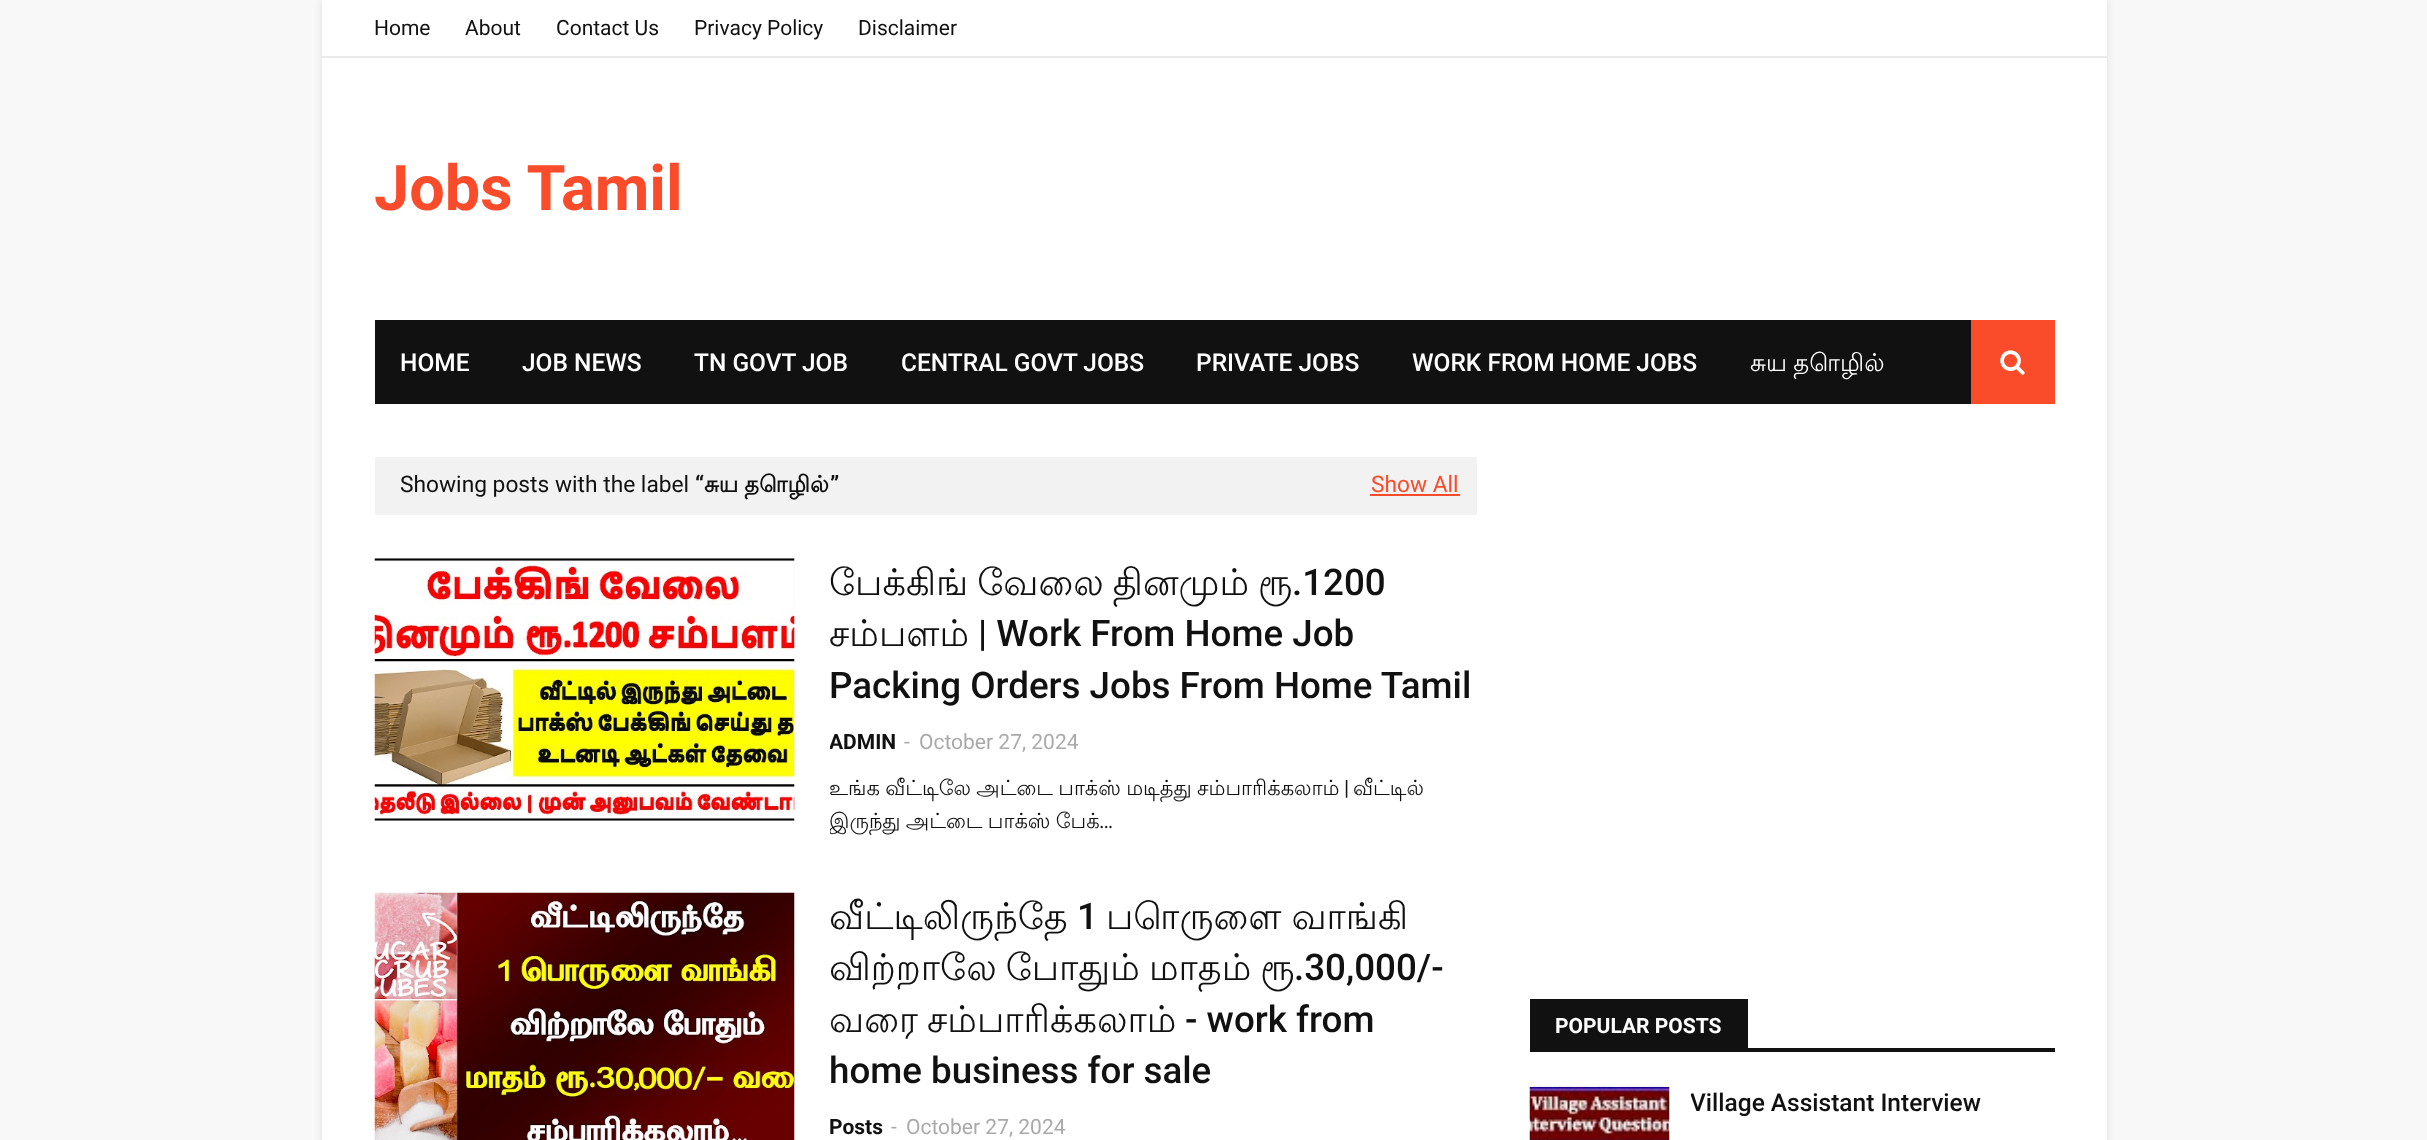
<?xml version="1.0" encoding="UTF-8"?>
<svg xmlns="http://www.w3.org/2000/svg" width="2427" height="1140">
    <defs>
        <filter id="blur1" x="-50%" y="-200%" width="200%" height="500%"><feGaussianBlur stdDeviation="4.5"/></filter>
        <clipPath id="clip1"><rect x="830" y="730" width="647" height="24"/></clipPath>
        <clipPath id="clip2"><rect x="830" y="772" width="647" height="68"/></clipPath>
        <clipPath id="clip3"><rect x="1691" y="1087" width="364" height="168"/></clipPath>
    </defs>
    <rect width="100%" height="100%" fill="#F8F8F8"/>
    <rect x="322" y="0" width="1785" height="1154" fill="#000000" fill-opacity="0.1" filter="url(#blur1)"/>
    <rect x="322" y="0" width="1785" height="1140" fill="#FFFFFF"/>
    <rect x="322" y="56" width="1785" height="2" fill="#EAEAEA"/>
    <text x="374" y="35" font-family="Roboto" font-size="21" fill="#111111">Home</text>
    <text x="465" y="35" font-family="Roboto" font-size="21" fill="#111111">About</text>
    <text x="556" y="35" font-family="Roboto" font-size="21" fill="#111111">Contact Us</text>
    <text x="694" y="35" font-family="Roboto" font-size="21" fill="#111111">Privacy Policy</text>
    <text x="858" y="35" font-family="Roboto" font-size="21" fill="#111111">Disclaimer</text>
    <text x="374" y="210" font-family="Roboto" font-size="63" font-weight="700" fill="#FA4C2A">Jobs Tamil</text>
    <rect x="375" y="320" width="1596" height="84" fill="#111111"/>
    <text x="400" y="371" font-family="Roboto" font-size="24.5" font-weight="500" fill="#FFFFFF">HOME</text>
    <text x="522" y="371" font-family="Roboto" font-size="24.5" font-weight="500" fill="#FFFFFF">JOB NEWS</text>
    <text x="694" y="371" font-family="Roboto" font-size="24.5" font-weight="500" fill="#FFFFFF">TN GOVT JOB</text>
    <text x="901" y="371" font-family="Roboto" font-size="24.5" font-weight="500" fill="#FFFFFF">CENTRAL GOVT JOBS</text>
    <text x="1196" y="371" font-family="Roboto" font-size="24.5" font-weight="500" fill="#FFFFFF">PRIVATE JOBS</text>
    <text x="1412" y="371" font-family="Roboto" font-size="24.5" font-weight="500" fill="#FFFFFF">WORK FROM HOME JOBS</text>
    <text x="1750" y="371" word-spacing="-1" font-family="Lohit Tamil" font-size="24.5" fill="#FFFFFF">சுய தொழில்</text>
    <rect x="1971" y="320" width="84" height="84" fill="#FA4C2A"/>
    <image x="2000" y="350" width="25" height="25" href="img_01.png"/>
    <rect x="375" y="457" width="1102" height="58" fill="#F2F2F2"/>
    <text x="400" y="492" font-family="Roboto" font-size="22.75" fill="#111111">Showing posts with the label</text>
    <text x="695" y="492" font-family="Roboto" font-size="22.75" font-weight="700" fill="#111111">“</text>
    <text x="704" y="492" word-spacing="-1" font-family="Lohit Tamil" font-size="22.75" font-weight="700" fill="#111111">சுய தொழில்</text>
    <text x="830" y="492" font-family="Roboto" font-size="22.75" font-weight="700" fill="#111111">”</text>
    <text x="1371" y="492" font-family="Roboto" font-size="22.75" fill="#FA4C2A">Show All</text>
    <rect x="1370" y="494" width="90" height="2" fill="#FA4C2A"/>
    <rect x="375" y="558" width="420" height="263" fill="#FAFAFA"/>
    <image x="374" y="558" width="421" height="263" href="img_02.png"/>
    <text x="829" y="595" word-spacing="-2" font-family="Lohit Tamil" font-size="36.75" fill="#111111">பேக்கிங் வேலை தினமும் ரூ</text>
    <text x="1292" y="595" font-family="Roboto" font-size="36.75" font-weight="500" fill="#111111">.1200</text>
    <text x="829" y="646" font-family="Lohit Tamil" font-size="36.75" fill="#111111">சம்பளம்</text>
    <text x="978" y="646" font-family="Roboto" font-size="36.75" font-weight="500" fill="#111111">| Work From Home Job</text>
    <text x="829" y="698" font-family="Roboto" font-size="36.75" font-weight="500" fill="#111111">Packing Orders Jobs From Home Tamil</text>
    <g clip-path="url(#clip1)">
        <text x="829" y="749" font-family="Roboto" font-size="21" font-weight="700" fill="#111111">ADMIN</text>
    </g>
    <text x="904" y="749" font-family="Roboto" font-size="21" fill="#AAAAAA">-</text>
    <text x="919" y="749" font-family="Roboto" font-size="21" fill="#AAAAAA">October 27, 2024</text>
    <text x="829" y="795" word-spacing="-1" font-family="Lohit Tamil" font-size="21" fill="#111111">உங்க வீட்டிலே அட்டை பாக்ஸ் மடித்து சம்பாரிக்கலாம்</text>
    <text x="1344" y="795" font-family="Roboto" font-size="21" fill="#111111">|</text>
    <text x="1353" y="795" font-family="Lohit Tamil" font-size="21" fill="#111111">வீட்டில்</text>
    <g clip-path="url(#clip2)">
        <text x="829" y="828" word-spacing="-1" font-family="Lohit Tamil" font-size="21" fill="#111111">இருந்து அட்டை பாக்ஸ் பேக்</text>
    </g>
    <text x="1099" y="828" font-family="Roboto" font-size="21" fill="#111111">…</text>
    <rect x="794" y="893" width="1" height="247" fill="#FAFAFA"/>
    <image x="374" y="892" width="421" height="248" href="img_03.png"/>
    <text x="829" y="929" font-family="Lohit Tamil" font-size="36.75" fill="#111111">வீட்டிலிருந்தே</text>
    <text x="1077" y="929" font-family="Roboto" font-size="36.75" font-weight="500" fill="#111111">1</text>
    <text x="1106" y="929" word-spacing="-1" font-family="Lohit Tamil" font-size="36.75" fill="#111111">பொருளை வாங்கி</text>
    <text x="829" y="980" word-spacing="-2" font-family="Lohit Tamil" font-size="36.75" fill="#111111">விற்றாலே போதும்</text>
    <text x="1149" y="980" word-spacing="-2" font-family="Lohit Tamil" font-size="36.75" fill="#111111">மாதம் ரூ</text>
    <text x="1294" y="980" font-family="Roboto" font-size="36.75" font-weight="500" fill="#111111">.30,000/-</text>
    <text x="829" y="1032" font-family="Lohit Tamil" font-size="36.75" fill="#111111">வரை</text>
    <text x="927" y="1032" font-family="Lohit Tamil" font-size="36.75" fill="#111111">சம்பாரிக்கலாம்</text>
    <text x="1185" y="1032" font-family="Roboto" font-size="36.75" font-weight="500" fill="#111111">- work from</text>
    <text x="829" y="1083" font-family="Roboto" font-size="36.75" font-weight="500" fill="#111111">home business for sale</text>
    <text x="829" y="1134" font-family="Roboto" font-size="21" font-weight="700" fill="#111111">Posts</text>
    <text x="891" y="1134" font-family="Roboto" font-size="21" fill="#AAAAAA">-</text>
    <text x="906" y="1134" font-family="Roboto" font-size="21" fill="#AAAAAA">October 27, 2024</text>
    <rect x="1530" y="1048" width="525" height="4" fill="#111111"/>
    <rect x="1530" y="999" width="218" height="49" fill="#111111"/>
    <text x="1555" y="1033" font-family="Roboto" font-size="21" font-weight="700" fill="#FFFFFF">POPULAR POSTS</text>
    <rect x="1669" y="1087" width="1" height="53" fill="#FAFAFA"/>
    <image x="1529" y="1086" width="141" height="54" href="img_04.png"/>
    <g clip-path="url(#clip3)">
        <text x="1690" y="1111" font-family="Roboto" font-size="24.5" font-weight="500" fill="#111111">Village Assistant Interview</text>
    </g>
</svg>
